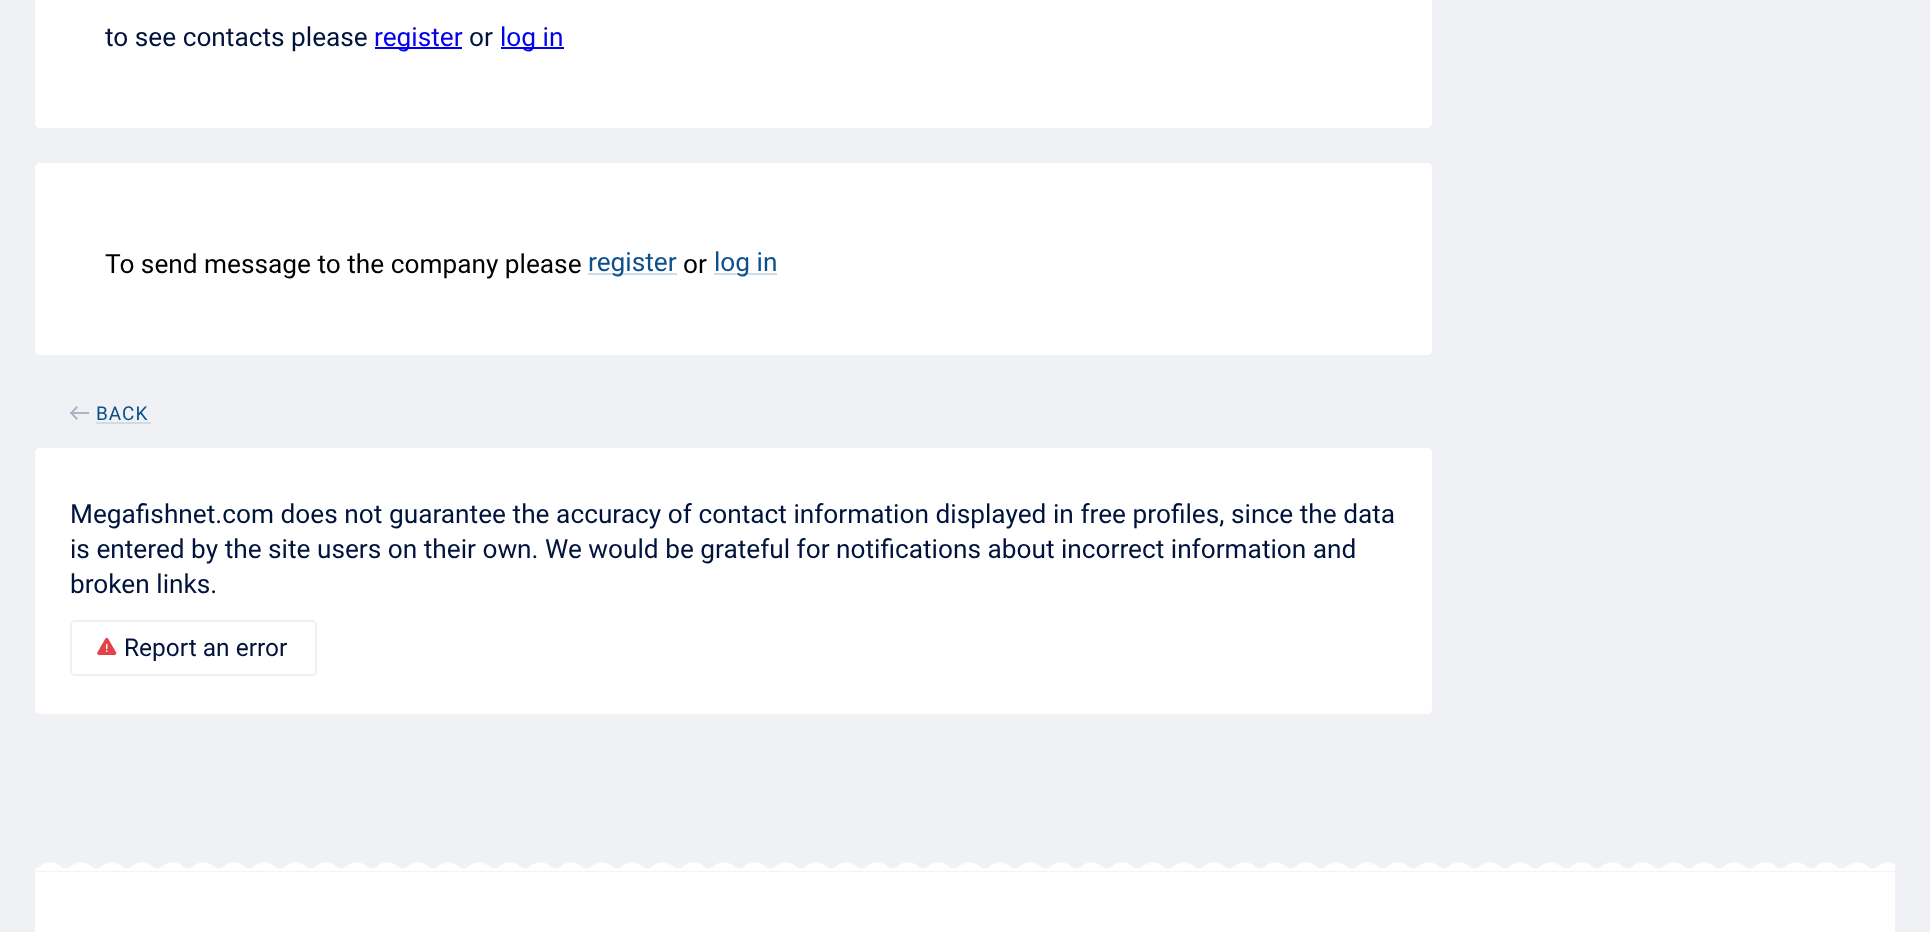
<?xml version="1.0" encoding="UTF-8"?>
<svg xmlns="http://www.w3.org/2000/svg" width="1930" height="932">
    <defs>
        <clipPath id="clip1"><path d="M 70 414 V 412 H 71 L 76.5 406 L 78 407.5 L 73.5 412 H 89 V 414 H 73.5 L 78 418.5 L 76.5 420 L 71 414 Z"/></clipPath>
    </defs>
    <rect width="100%" height="100%" fill="#EFF1F5"/>
    <rect x="35" y="-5" width="1397" height="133" rx="5" fill="#FFFFFF"/>
    <text x="105" y="46" font-family="Roboto" font-size="26.25" fill="#00133D">to see contacts please</text>
    <rect x="375" y="47" width="87" height="2" fill="#0000EE"/>
    <text x="374" y="46" font-family="Roboto" font-size="26.25" fill="#0000EE">register</text>
    <text x="469" y="46" font-family="Roboto" font-size="26.25" fill="#00133D">or</text>
    <rect x="501" y="47" width="63" height="2" fill="#0000EE"/>
    <text x="500" y="46" font-family="Roboto" font-size="26.25" fill="#0000EE">log in</text>
    <rect x="35" y="163" width="1397" height="192" rx="5" fill="#FFFFFF"/>
    <text x="105" y="273" font-family="Roboto" font-size="26.25" fill="#000000">To send message to the company please</text>
    <rect x="588" y="273" width="89" height="2" fill="#CEDCE8"/>
    <text x="588" y="271" font-family="Roboto" font-size="26.25" fill="#0B508A">register</text>
    <text x="683" y="273" font-family="Roboto" font-size="26.25" fill="#000000">or</text>
    <rect x="714" y="273" width="63" height="2" fill="#CEDCE8"/>
    <text x="714" y="271" font-family="Roboto" font-size="26.25" fill="#0B508A">log in</text>
    <g clip-path="url(#clip1)">
        <path d="M 70 414 V 412 H 71 L 76.5 406 L 78 407.5 L 73.5 412 H 89 V 414 H 73.5 L 78 418.5 L 76.5 420 L 71 414 Z" fill="none" stroke="#AAB4C2" stroke-width="3.9"/>
    </g>
    <text x="96" y="420" font-family="Roboto" font-size="19" letter-spacing="1" fill="#0B508A">BACK</text>
    <rect x="96" y="422" width="55" height="2" fill="#CEDCE8"/>
    <rect x="35" y="448" width="1397" height="266" rx="5" fill="#FFFFFF"/>
    <text font-family="Roboto" font-size="26.25" fill="#00133D">
        <tspan x="70" y="523" word-spacing="0.1">Megafishnet.com does not guarantee the accuracy of contact information displayed in free profiles, since the data</tspan>
        <tspan x="70" y="558">is entered by the site users on their own. We would be grateful for notifications about incorrect information and</tspan>
        <tspan x="70" y="593">broken links.</tspan>
    </text>
    <rect x="71" y="621" width="245" height="54" rx="4" fill="none" stroke="#EDF0F4" stroke-width="2"/>
    <image x="97" y="637" width="20" height="18" href="img_01.png"/>
    <text x="124" y="656" font-family="Roboto" font-size="24.5" fill="#00133D">Report an error</text>
    <rect x="35" y="872" width="1860" height="60" fill="#FFFFFF"/>
    <image x="35" y="862" width="1861" height="10" href="img_02.png"/>
</svg>
